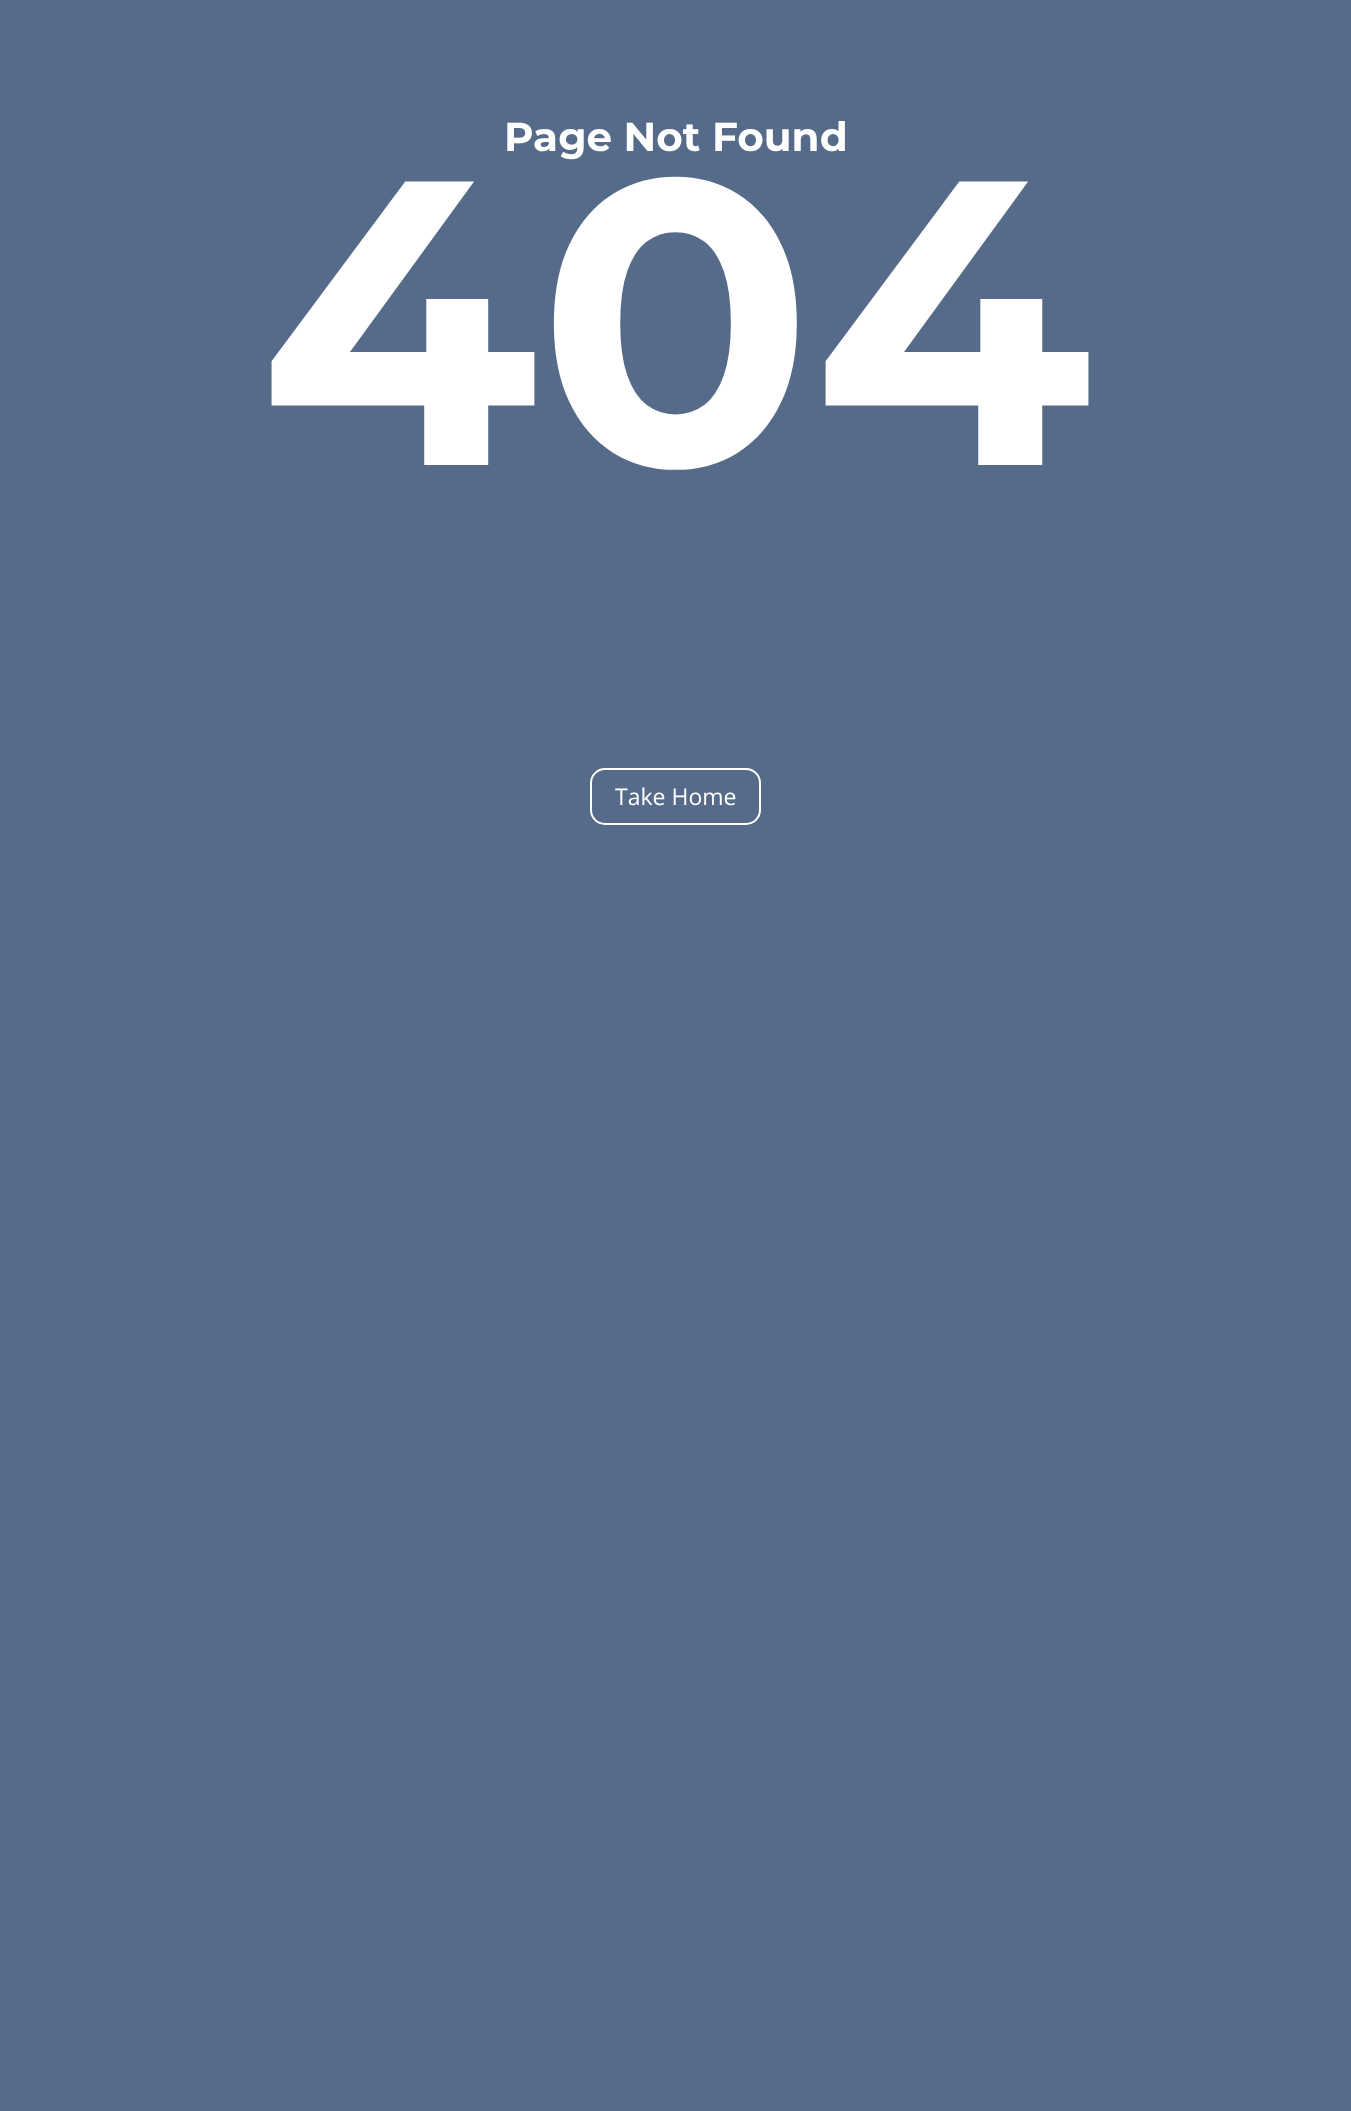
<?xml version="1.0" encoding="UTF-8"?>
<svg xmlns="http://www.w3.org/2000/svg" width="1351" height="2111">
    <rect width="100%" height="100%" fill="#556B89"/>
    <text x="504" y="151" font-family="Montserrat" font-size="40.5" font-weight="700" fill="#FFFFFF">Page Not Found</text>
    <text x="259" y="465" font-family="Montserrat" font-size="405" font-weight="700" fill="#FFFFFF">404</text>
    <rect x="591" y="769" width="169" height="55" rx="14" fill="none" stroke="#FFFFFF" stroke-width="2"/>
    <text x="615" y="805" font-family="Open Sans" font-size="23" fill="#FFFFFF">Take Home</text>
</svg>
